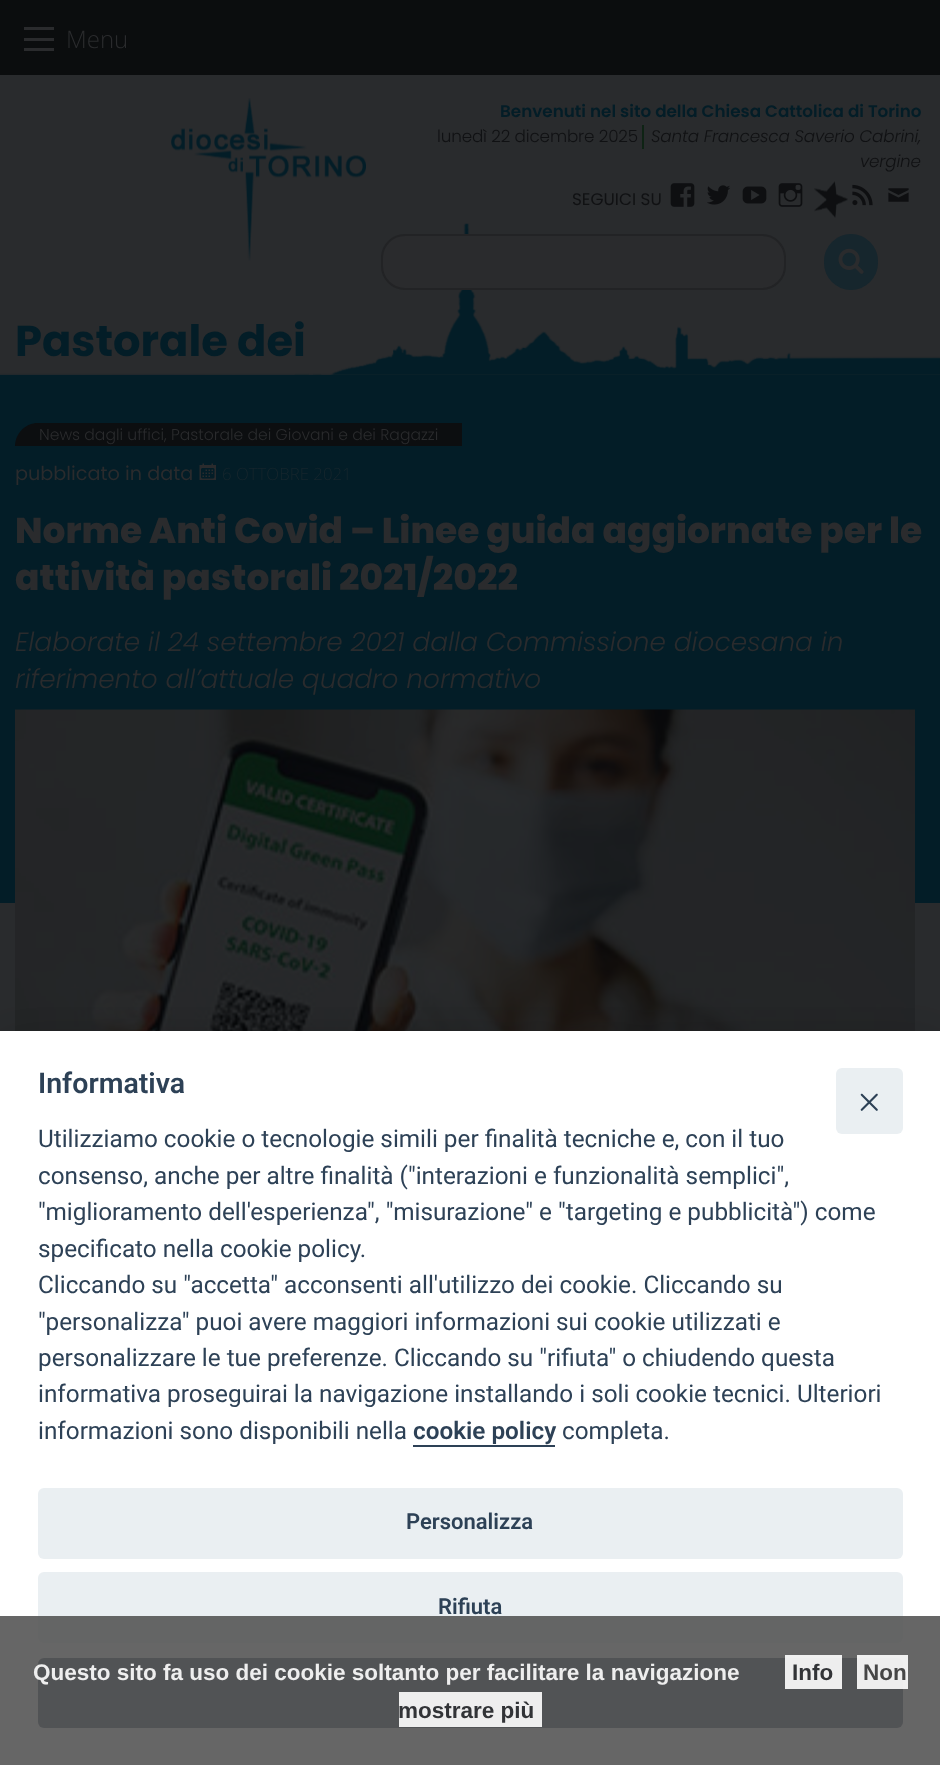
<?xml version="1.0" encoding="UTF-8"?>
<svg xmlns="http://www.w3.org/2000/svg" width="940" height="1765">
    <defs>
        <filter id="blur1" x="-50%" y="-200%" width="200%" height="500%"><feGaussianBlur stdDeviation="25.5"/></filter>
    </defs>
    <rect width="100%" height="100%" fill="#292B2D"/>
    <rect x="0" y="0" width="940" height="75" fill="#0B0D0E"/>
    <rect x="24" y="48" width="30" height="3" fill="#2A2B2D"/>
    <rect x="24" y="38" width="30" height="3" fill="#2A2B2D"/>
    <rect x="24" y="27" width="30" height="3" fill="#2A2B2D"/>
    <text x="66" y="48" font-family="Open Sans" font-size="24" font-weight="300" fill="#2A2B2D">Menu</text>
    <image x="0" y="223" width="940" height="152" href="img_01.png"/>
    <text x="500" y="117" font-family="Poppins" font-size="16.8" font-weight="600" fill="#031D27">Benvenuti nel sito della Chiesa Cattolica di Torino</text>
    <text x="437" y="142" font-family="Poppins" font-size="16.8" font-weight="300" letter-spacing="-0.15" fill="#101113">lunedì 22 dicembre 2025</text>
    <text x="651" y="142" font-family="Poppins" font-size="16.8" font-weight="300" font-style="italic" letter-spacing="-0.15" fill="#101113">Santa Francesca Saverio Cabrini,</text>
    <rect x="642" y="125" width="2" height="24" fill="#0E2314"/>
    <text x="860" y="167" font-family="Poppins" font-size="16.8" font-weight="300" font-style="italic" letter-spacing="-0.15" fill="#101113">vergine</text>
    <text x="572" y="205" font-family="Poppins" font-size="16.8" fill="#101113">SEGUICI SU</text>
    <image x="670" y="183" width="25" height="24" href="img_02.png"/>
    <image x="707" y="185" width="24" height="20" href="img_03.png"/>
    <image x="742" y="186" width="25" height="18" href="img_04.png"/>
    <image x="778" y="183" width="25" height="24" href="img_05.png"/>
    <image x="814" y="181" width="34" height="37" href="img_06.png"/>
    <image x="852" y="184" width="21" height="22" href="img_07.png"/>
    <image x="888" y="188" width="21" height="14" href="img_08.png"/>
    <rect x="382" y="235" width="403" height="54" rx="23" fill="#2A2B2D" stroke="#222325" stroke-width="2"/>
    <rect x="824" y="234" width="54" height="56" rx="27" fill="#16262D"/>
    <image x="838" y="248" width="26" height="26" href="img_09.png"/>
    <image x="171" y="98" width="195" height="163" href="img_10.png"/>
    <text x="15" y="356" font-family="Poppins" font-size="43.25" font-weight="700" fill="#031D27">Pastorale dei</text>
    <rect x="0" y="375" width="940" height="528" fill="#031D27"/>
    <path d="M 38 423 H 164 V 446 H 15 C 15 433.5 25.5 423 38 423 Z" fill="#0C0E10"/>
    <rect x="164" y="423" width="298" height="23" fill="#0C0E10"/>
    <text x="39" y="440" font-family="Poppins" font-size="15.6" font-weight="300" fill="#2A2B2D">News dagli uffici, Pastorale dei Giovani e dei Ragazzi</text>
    <text x="15" y="480" font-family="Poppins" font-size="19.25" fill="#2A2B2D">pubblicato in data</text>
    <image x="199" y="463" width="17" height="17" href="img_11.png"/>
    <text x="222" y="480" font-family="Open Sans" font-size="16.8" font-weight="300" fill="#16262D">6 OTTOBRE 2021</text>
    <text font-family="Poppins" font-size="36" font-weight="800" fill="#2A2B2D">
        <tspan x="15" y="543">Norme Anti Covid – Linee guida aggiornate per le</tspan>
        <tspan x="15" y="590">attività pastorali 2021/2022</tspan>
    </text>
    <text font-family="Poppins" font-size="26.4" font-weight="300" font-style="italic" fill="#2A2B2D">
        <tspan x="15" y="651">Elaborate il 24 settembre 2021 dalla Commissione diocesana in</tspan>
        <tspan x="15" y="688">riferimento all’attuale quadro normativo</tspan>
    </text>
    <image x="15" y="709" width="900" height="322" href="img_12.png"/>
    <rect x="0" y="1047" width="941" height="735" fill="#020203" fill-opacity="0.28" filter="url(#blur1)"/>
    <rect x="0" y="1031" width="940" height="734" fill="#FFFFFF"/>
    <rect x="836" y="1068" width="67" height="66" rx="6" fill="#EAEFF2"/>
    <path d="M 877.5 1094 C 878 1094.5 878 1095 877.5 1095.5 L 862.5 1110.5 C 862 1111 861.5 1111 861 1110.5 C 860.5 1110 860.5 1109.5 861 1109 L 876 1094 C 876.5 1093.5 877.5 1093.5 877.5 1094 Z" fill="#2D4156"/>
    <path d="M 861 1094 C 861.5 1093.5 862 1093.5 862.5 1094 L 877.5 1109 C 878 1109.5 878 1110 877.5 1110.5 C 877.5 1111 876.5 1111 876 1110.5 L 861 1095.5 C 860.5 1095 860.5 1094.5 861 1094 Z" fill="#2D4156"/>
    <text x="38" y="1093" font-family="Roboto" font-size="28.5" font-weight="600" fill="#2D4156">Informativa</text>
    <text font-family="Roboto" font-size="24.3" fill="#2D4156">
        <tspan x="38" y="1147">Utilizziamo cookie o tecnologie simili per finalità tecniche e, con il tuo</tspan>
        <tspan x="38" y="1184">consenso, anche per altre finalità ("interazioni e funzionalità semplici",</tspan>
        <tspan x="38" y="1220">"miglioramento dell'esperienza", "misurazione" e "targeting e pubblicità") come</tspan>
        <tspan x="38" y="1257">specificato nella cookie policy.</tspan>
        <tspan x="38" y="1293">Cliccando su "accetta" acconsenti all'utilizzo dei cookie. Cliccando su</tspan>
        <tspan x="38" y="1330">"personalizza" puoi avere maggiori informazioni sui cookie utilizzati e</tspan>
        <tspan x="38" y="1366">personalizzare le tue preferenze. Cliccando su "rifiuta" o chiudendo questa</tspan>
        <tspan x="38" y="1402">informativa proseguirai la navigazione installando i soli cookie tecnici. Ulteriori</tspan>
        <tspan x="38" y="1439">informazioni sono disponibili nella</tspan>
    </text>
    <text x="413" y="1439" font-family="Roboto" font-size="24.3" font-weight="600" fill="#2D4156">cookie policy</text>
    <rect x="413" y="1445" width="142" height="2" fill="#2D4156"/>
    <text x="562" y="1439" font-family="Roboto" font-size="24.3" fill="#2D4156">completa.</text>
    <rect x="38" y="1488" width="865" height="71" rx="6" fill="#EAEFF2"/>
    <text x="406" y="1529" font-family="Roboto" font-size="22" font-weight="600" fill="#2D4156">Personalizza</text>
    <rect x="38" y="1572" width="865" height="71" rx="6" fill="#EAEFF2"/>
    <text x="438" y="1614" font-family="Roboto" font-size="22" font-weight="600" fill="#2D4156">Rifiuta</text>
    <rect x="38" y="1658" width="865" height="70" rx="6" fill="#2D4156"/>
    <rect x="0" y="1616" width="940" height="149" fill="#555555" fill-opacity="0.9"/>
    <text x="33" y="1680" font-family="Liberation Sans" font-size="22.5" font-weight="700" fill="#EEEEEE">Questo sito fa uso dei cookie soltanto per facilitare la navigazione</text>
    <rect x="785" y="1655" width="57" height="34" fill="#FFFFFF" fill-opacity="0.9"/>
    <text x="792" y="1680" font-family="Liberation Sans" font-size="22.5" font-weight="700" fill="#323437">Info</text>
    <rect x="857" y="1655" width="51" height="34" fill="#FFFFFF" fill-opacity="0.9"/>
    <text x="863" y="1680" font-family="Liberation Sans" font-size="22.5" font-weight="700" fill="#464646">Non</text>
    <rect x="399" y="1692" width="143" height="35" fill="#FFFFFF" fill-opacity="0.9"/>
    <text x="398" y="1718" font-family="Liberation Sans" font-size="22.5" font-weight="700" fill="#323437">mostrare più</text>
</svg>
